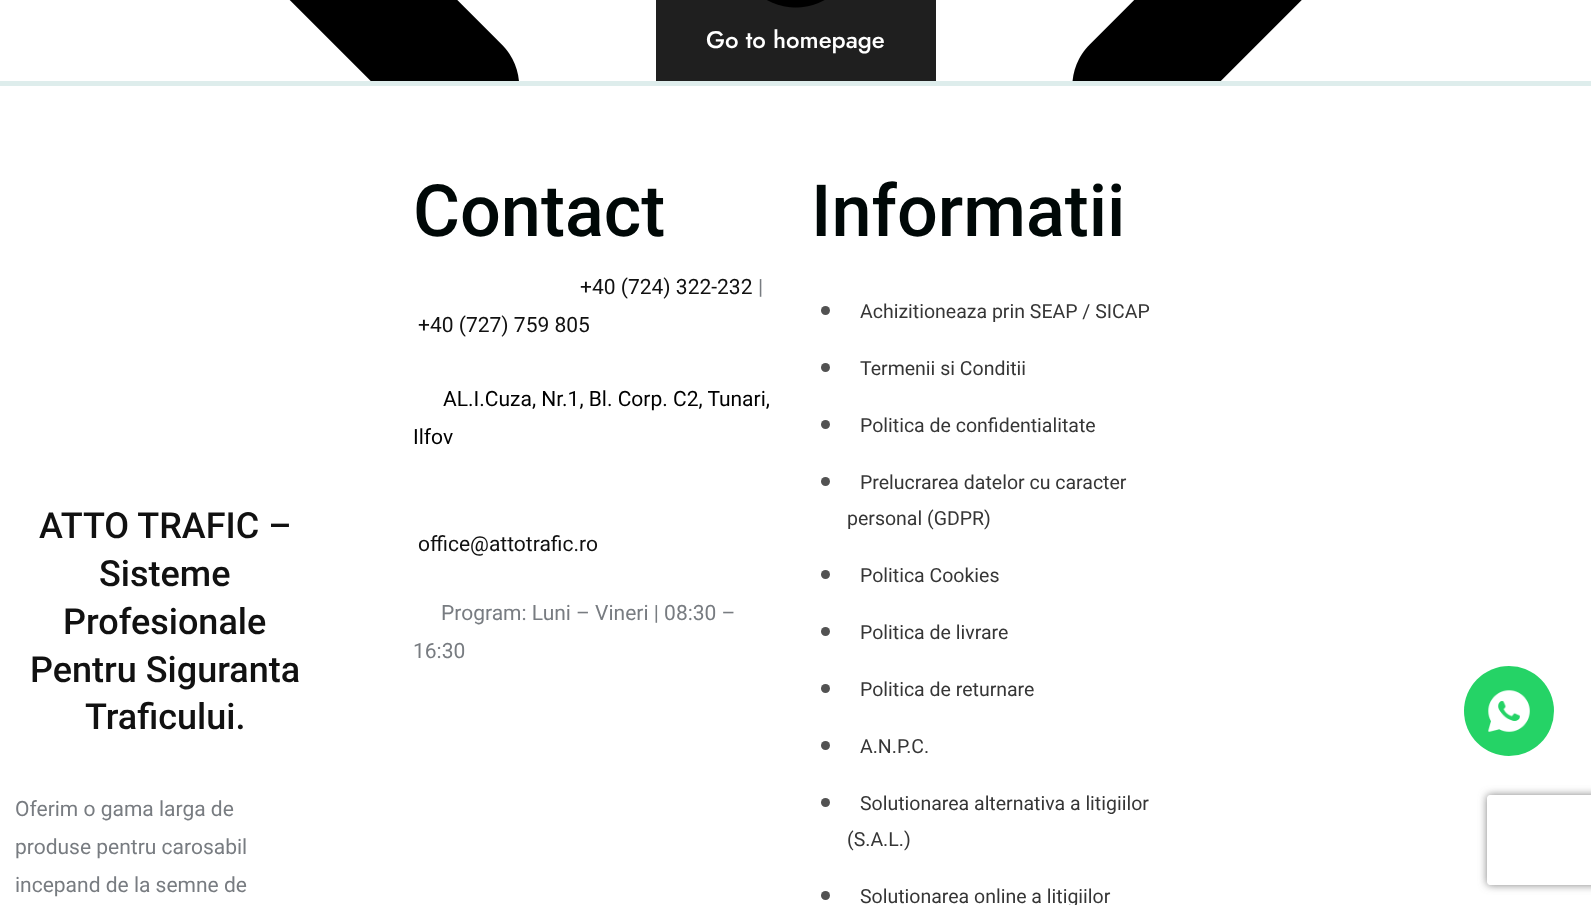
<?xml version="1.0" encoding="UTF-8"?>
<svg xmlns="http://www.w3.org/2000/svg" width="1591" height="905">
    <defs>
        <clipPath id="clip1"><path d="M 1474 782 H 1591 V 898 H 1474 Z M 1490 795 H 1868 C 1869.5 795 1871 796.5 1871 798 V 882 C 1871 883.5 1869.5 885 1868 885 H 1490 C 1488.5 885 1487 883.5 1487 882 V 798 C 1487 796.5 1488.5 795 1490 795 Z" clip-rule="evenodd"/></clipPath>
        <filter id="blur1" x="-50%" y="-200%" width="200%" height="500%"><feGaussianBlur stdDeviation="4"/></filter>
    </defs>
    <rect width="100%" height="100%" fill="#FFFFFF"/>
    <rect x="656" y="0" width="280" height="81" fill="#1F1F1F"/>
    <text x="706" y="48" font-family="Jost" font-size="24" font-weight="500" fill="#FFFFFF">Go to homepage</text>
    <image x="289" y="0" width="1013" height="81" href="img_01.png"/>
    <rect x="0" y="81" width="1591" height="5" fill="#DEEDEC"/>
    <text x="413" y="236" font-family="Roboto" font-size="72" font-weight="500" fill="#000807">Contact</text>
    <text x="580" y="294" font-family="Roboto" font-size="21" fill="#111111">+40 (724) 322-232</text>
    <text x="758" y="294" font-family="Roboto" font-size="21" fill="#787C81">|</text>
    <text x="418" y="332" font-family="Roboto" font-size="21" fill="#111111">+40 (727) 759 805</text>
    <text x="443" y="406" font-family="Roboto" font-size="21" fill="#000000">AL.I.Cuza, Nr.1, Bl. Corp. C2, Tunari,</text>
    <text x="413" y="444" font-family="Roboto" font-size="21" fill="#000000">Ilfov</text>
    <text x="418" y="551" font-family="Roboto" font-size="21" fill="#111111">office@attotrafic.ro</text>
    <text x="441" y="620" font-family="Roboto" font-size="21" fill="#787C81">Program: Luni – Vineri | 08:30 –</text>
    <text x="413" y="658" font-family="Roboto" font-size="21" fill="#787C81">16:30</text>
    <text x="811" y="236" font-family="Roboto" font-size="72" font-weight="500" fill="#000807">Informatii</text>
    <circle cx="825.5" cy="310.5" r="4.5" fill="#525252"/>
    <text x="860" y="318" font-family="Roboto" font-size="19.5" fill="#363636">Achizitioneaza prin SEAP / SICAP</text>
    <circle cx="825.5" cy="367.5" r="4.5" fill="#525252"/>
    <text x="860" y="375" font-family="Roboto" font-size="19.5" fill="#363636">Termenii si Conditii</text>
    <circle cx="825.5" cy="424.5" r="4.5" fill="#525252"/>
    <text x="860" y="432" font-family="Roboto" font-size="19.5" fill="#363636">Politica de confidentialitate</text>
    <circle cx="825.5" cy="481.5" r="4.5" fill="#525252"/>
    <text x="860" y="489" font-family="Roboto" font-size="19.5" fill="#363636">Prelucrarea datelor cu caracter</text>
    <text x="847" y="525" font-family="Roboto" font-size="19.5" fill="#363636">personal (GDPR)</text>
    <circle cx="825.5" cy="574.5" r="4.5" fill="#525252"/>
    <text x="860" y="582" font-family="Roboto" font-size="19.5" fill="#363636">Politica Cookies</text>
    <circle cx="825.5" cy="631.5" r="4.5" fill="#525252"/>
    <text x="860" y="639" font-family="Roboto" font-size="19.5" fill="#363636">Politica de livrare</text>
    <circle cx="825.5" cy="688.5" r="4.5" fill="#525252"/>
    <text x="860" y="696" font-family="Roboto" font-size="19.5" fill="#363636">Politica de returnare</text>
    <circle cx="825.5" cy="745.5" r="4.5" fill="#525252"/>
    <text x="860" y="753" font-family="Roboto" font-size="19.5" fill="#363636">A.N.P.C.</text>
    <circle cx="825.5" cy="802.5" r="4.5" fill="#525252"/>
    <text x="860" y="810" font-family="Roboto" font-size="19.5" fill="#363636">Solutionarea alternativa a litigiilor</text>
    <text x="847" y="846" font-family="Roboto" font-size="19.5" fill="#363636">(S.A.L.)</text>
    <circle cx="825.5" cy="895.5" r="4.5" fill="#525252"/>
    <text x="860" y="903" font-family="Roboto" font-size="19.5" fill="#363636">Solutionarea online a litigiilor</text>
    <text x="39" y="538" font-family="Roboto" font-size="36" font-weight="500" fill="#111111">ATTO TRAFIC –</text>
    <text x="99" y="586" font-family="Roboto" font-size="36" font-weight="500" fill="#111111">Sisteme</text>
    <text x="63" y="634" font-family="Roboto" font-size="36" font-weight="500" fill="#111111">Profesionale</text>
    <text x="30" y="682" font-family="Roboto" font-size="36" font-weight="500" fill="#111111">Pentru Siguranta</text>
    <text x="85" y="729" font-family="Roboto" font-size="36" font-weight="500" fill="#111111">Traficului.</text>
    <text font-family="Roboto" font-size="21" fill="#787C81">
        <tspan x="15" y="816">Oferim o gama larga de</tspan>
        <tspan x="15" y="854">produse pentru carosabil</tspan>
        <tspan x="15" y="892">incepand de la semne de</tspan>
    </text>
    <circle cx="1509" cy="711" r="45" fill="#25D366"/>
    <image x="1488" y="690" width="42" height="42" href="img_02.png"/>
    <g clip-path="url(#clip1)">
        <rect x="1487" y="795" width="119" height="90" rx="3" fill="#808080" filter="url(#blur1)"/>
    </g>
</svg>
